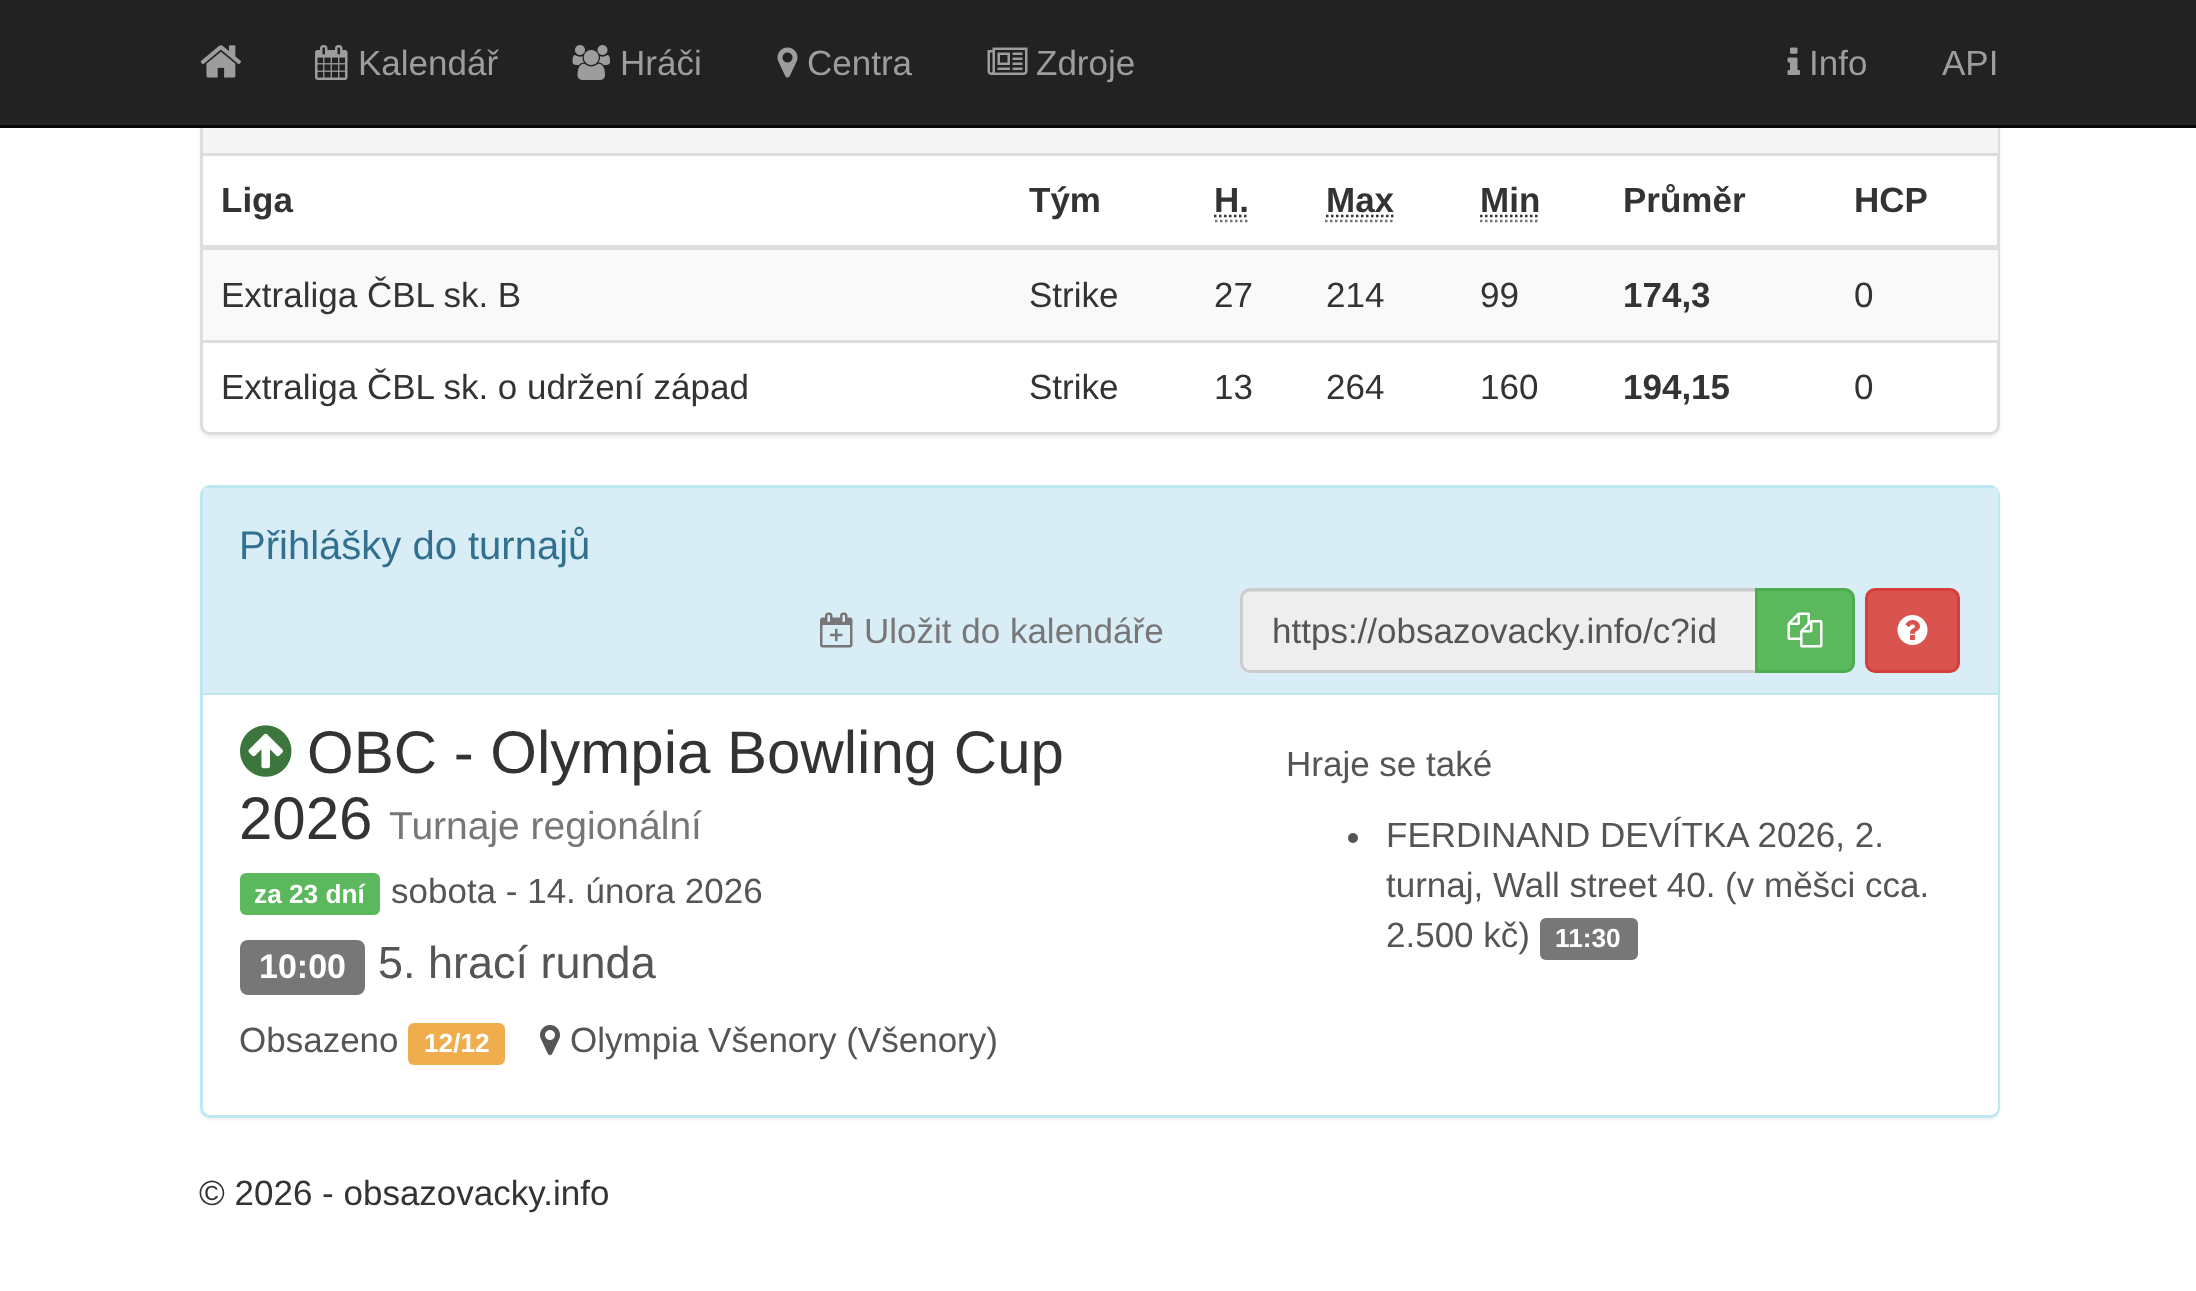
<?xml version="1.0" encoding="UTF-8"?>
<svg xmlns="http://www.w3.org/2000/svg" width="2196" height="1291">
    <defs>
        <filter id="blur1" x="-50%" y="-200%" width="200%" height="500%"><feGaussianBlur stdDeviation="1"/></filter>
        <clipPath id="clip1"><rect x="1273" y="610" width="452" height="40"/></clipPath>
    </defs>
    <rect width="100%" height="100%" fill="#FFFFFF"/>
    <rect x="200" y="-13" width="1800" height="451" rx="10" fill="#000000" fill-opacity="0.05" filter="url(#blur1)"/>
    <rect x="201.5" y="-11.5" width="1797" height="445" rx="8.5" fill="#FFFFFF" stroke="#DDDDDD" stroke-width="3"/>
    <rect x="0" y="0" width="2196" height="125" fill="#222222"/>
    <rect x="0" y="125" width="2196" height="3" fill="#080808"/>
    <image x="200" y="45" width="42" height="33" href="img_01.png"/>
    <image x="315" y="45" width="33" height="35" href="img_02.png"/>
    <text x="358" y="75" font-family="Liberation Sans" font-size="35" fill="#9D9D9D">Kalendář</text>
    <image x="572" y="45" width="38" height="35" href="img_03.png"/>
    <text x="620" y="75" font-family="Liberation Sans" font-size="35" fill="#9D9D9D">Hráči</text>
    <image x="777" y="47" width="21" height="31" href="img_04.png"/>
    <text x="807" y="75" font-family="Liberation Sans" font-size="35" fill="#9D9D9D">Centra</text>
    <image x="987" y="47" width="41" height="28" href="img_05.png"/>
    <text x="1036" y="75" font-family="Liberation Sans" font-size="35" fill="#9D9D9D">Zdroje</text>
    <image x="1787" y="47" width="13" height="28" href="img_06.png"/>
    <text x="1809" y="75" font-family="Liberation Sans" font-size="35" fill="#9D9D9D">Info</text>
    <text x="1942" y="75" font-family="Liberation Sans" font-size="35" fill="#9D9D9D">API</text>
    <rect x="203" y="128" width="1795" height="25" fill="#F5F5F5"/>
    <rect x="203" y="153" width="1795" height="3" fill="#DDDDDD"/>
    <text x="221" y="212" font-family="Liberation Sans" font-size="35" font-weight="700" fill="#333333">Liga</text>
    <text x="1029" y="212" font-family="Liberation Sans" font-size="35" font-weight="700" fill="#333333">Tým</text>
    <text x="1214" y="212" font-family="Liberation Sans" font-size="35" font-weight="700" fill="#333333">H.</text>
    <path d="M 1215 221 H 1250" fill="none" stroke="#777777" stroke-width="2.5" stroke-dasharray="2.5 2.5"/>
    <path d="M 1214 216 H 1249" fill="none" stroke="#333333" stroke-width="2.5" stroke-dasharray="2.5 2.5"/>
    <text x="1326" y="212" font-family="Liberation Sans" font-size="35" font-weight="700" fill="#333333">Max</text>
    <path d="M 1325 221 H 1395" fill="none" stroke="#777777" stroke-width="2.5" stroke-dasharray="2.5 2.5"/>
    <path d="M 1326 216 H 1394" fill="none" stroke="#333333" stroke-width="2.5" stroke-dasharray="2.5 2.5"/>
    <text x="1480" y="212" font-family="Liberation Sans" font-size="35" font-weight="700" fill="#333333">Min</text>
    <path d="M 1480 221 H 1540" fill="none" stroke="#777777" stroke-width="2.5" stroke-dasharray="2.5 2.5"/>
    <path d="M 1480 216 H 1540" fill="none" stroke="#333333" stroke-width="2.5" stroke-dasharray="2.5 2.5"/>
    <text x="1623" y="212" font-family="Liberation Sans" font-size="35" font-weight="700" fill="#333333">Průměr</text>
    <rect x="200" y="245" width="1800" height="5" fill="#DDDDDD"/>
    <text x="1854" y="212" font-family="Liberation Sans" font-size="35" font-weight="700" fill="#333333">HCP</text>
    <rect x="203" y="250" width="1795" height="90" fill="#F9F9F9"/>
    <text x="221" y="307" font-family="Liberation Sans" font-size="35" fill="#333333">Extraliga ČBL sk. B</text>
    <text x="1029" y="307" font-family="Liberation Sans" font-size="35" fill="#333333">Strike</text>
    <text x="1214" y="307" font-family="Liberation Sans" font-size="35" fill="#333333">27</text>
    <text x="1326" y="307" font-family="Liberation Sans" font-size="35" fill="#333333">214</text>
    <text x="1480" y="307" font-family="Liberation Sans" font-size="35" fill="#333333">99</text>
    <text x="1623" y="307" font-family="Liberation Sans" font-size="35" font-weight="700" fill="#333333">174,3</text>
    <text x="1854" y="307" font-family="Liberation Sans" font-size="35" fill="#333333">0</text>
    <text x="221" y="399" font-family="Liberation Sans" font-size="35" fill="#333333">Extraliga ČBL sk. o udržení západ</text>
    <text x="1029" y="399" font-family="Liberation Sans" font-size="35" fill="#333333">Strike</text>
    <text x="1214" y="399" font-family="Liberation Sans" font-size="35" fill="#333333">13</text>
    <text x="1326" y="399" font-family="Liberation Sans" font-size="35" fill="#333333">264</text>
    <text x="1480" y="399" font-family="Liberation Sans" font-size="35" fill="#333333">160</text>
    <text x="1623" y="399" font-family="Liberation Sans" font-size="35" font-weight="700" fill="#333333">194,15</text>
    <rect x="200" y="340" width="1798" height="3" fill="#DDDDDD"/>
    <text x="1854" y="399" font-family="Liberation Sans" font-size="35" fill="#333333">0</text>
    <rect x="200" y="488" width="1800" height="632" rx="10" fill="#000000" fill-opacity="0.05" filter="url(#blur1)"/>
    <rect x="201.5" y="486.5" width="1797" height="630" rx="8.5" fill="#FFFFFF" stroke="#BCE8F1" stroke-width="3"/>
    <rect x="203" y="488" width="1795" height="205" fill="#D9EDF7"/>
    <rect x="203" y="693" width="1795" height="2" fill="#BCE8F1"/>
    <text x="239" y="559" font-family="Liberation Sans" font-size="40" fill="#31708F">Přihlášky do turnajů</text>
    <image x="820" y="612" width="33" height="36" href="img_07.png"/>
    <text x="864" y="643" font-family="Liberation Sans" font-size="35" fill="#777777">Uložit do kalendáře</text>
    <path d="M 1250 588 H 1758 V 673 H 1250 C 1244.5 673 1240 668.5 1240 663 V 598 C 1240 592.5 1244.5 588 1250 588 Z" fill="#EEEEEE"/>
    <path d="M 1250 592 H 1755 V 590 H 1251 C 1247 590 1244 593 1243 596 C 1245 594 1247 592 1250 592 Z" fill="#DCDCDC"/>
    <path d="M 1250 589.5 H 1756.5 V 671.5 H 1250 C 1245.5 671.5 1241.5 667.5 1241.5 663 V 598 C 1241.5 593.5 1245.5 589.5 1250 589.5 Z" fill="none" stroke="#CCCCCC" stroke-width="3"/>
    <g clip-path="url(#clip1)">
        <text x="1272" y="643" font-family="Liberation Sans" font-size="35" fill="#555555">https://obsazovacky.info/c?id</text>
    </g>
    <path d="M 1756.5 589.5 H 1845 C 1849.5 589.5 1853.5 593.5 1853.5 598 V 663 C 1853.5 667.5 1849.5 671.5 1845 671.5 H 1756.5 Z" fill="#5CB85C" stroke="#4CAE4C" stroke-width="3"/>
    <image x="1787" y="612" width="36" height="36" href="img_08.png"/>
    <rect x="1866.5" y="589.5" width="92" height="82" rx="8.5" fill="#D9534F" stroke="#D43F3A" stroke-width="3"/>
    <image x="1897" y="615" width="31" height="30" href="img_09.png"/>
    <path d="M 203 695 H 1998 V 1107 C 1998 1111.5 1994.5 1115 1990 1115 H 211 C 206.5 1115 203 1111.5 203 1107 Z" fill="#FFFFFF"/>
    <image x="240" y="725" width="52" height="52" href="img_10.png"/>
    <text x="307" y="773" font-family="Liberation Sans" font-size="60" fill="#333333">OBC - Olympia Bowling Cup</text>
    <text x="239" y="839" font-family="Liberation Sans" font-size="60" fill="#333333">2026</text>
    <text x="389" y="839" font-family="Liberation Sans" font-size="39" fill="#777777">Turnaje regionální</text>
    <rect x="240" y="873" width="140" height="42" rx="6" fill="#5CB85C"/>
    <text x="254" y="903" font-family="Liberation Sans" font-size="26.25" font-weight="700" fill="#FFFFFF">za 23 dní</text>
    <text x="391" y="903" font-family="Liberation Sans" font-size="35" fill="#555555">sobota - 14. února 2026</text>
    <rect x="240" y="940" width="125" height="55" rx="8" fill="#777777"/>
    <text x="259" y="978" font-family="Liberation Sans" font-size="34" font-weight="700" fill="#FFFFFF">10:00</text>
    <text x="378" y="978" font-family="Liberation Sans" font-size="45" fill="#555555">5. hrací runda</text>
    <text x="239" y="1052" font-family="Liberation Sans" font-size="35" fill="#555555">Obsazeno</text>
    <rect x="408" y="1023" width="97" height="42" rx="6" fill="#F0AD4E"/>
    <text x="424" y="1052" font-family="Liberation Sans" font-size="26.25" font-weight="700" fill="#FFFFFF">12/12</text>
    <image x="540" y="1025" width="20" height="30" href="img_11.png"/>
    <text x="570" y="1052" font-family="Liberation Sans" font-size="35" fill="#555555">Olympia Všenory (Všenory)</text>
    <text x="1286" y="776" font-family="Liberation Sans" font-size="35" fill="#555555">Hraje se také</text>
    <circle cx="1353" cy="838" r="5" fill="#555555"/>
    <text font-family="Liberation Sans" font-size="35" fill="#555555">
        <tspan x="1386" y="847">FERDINAND DEVÍTKA 2026, 2.</tspan>
        <tspan x="1386" y="897">turnaj, Wall street 40. (v měšci cca.</tspan>
        <tspan x="1386" y="947">2.500 kč)</tspan>
    </text>
    <rect x="1540" y="918" width="98" height="42" rx="6" fill="#777777"/>
    <text x="1555" y="947" font-family="Liberation Sans" font-size="26.25" font-weight="700" fill="#FFFFFF">11:30</text>
    <text x="199" y="1205" font-family="Liberation Sans" font-size="35" fill="#333333">© 2026 - obsazovacky.info</text>
</svg>
